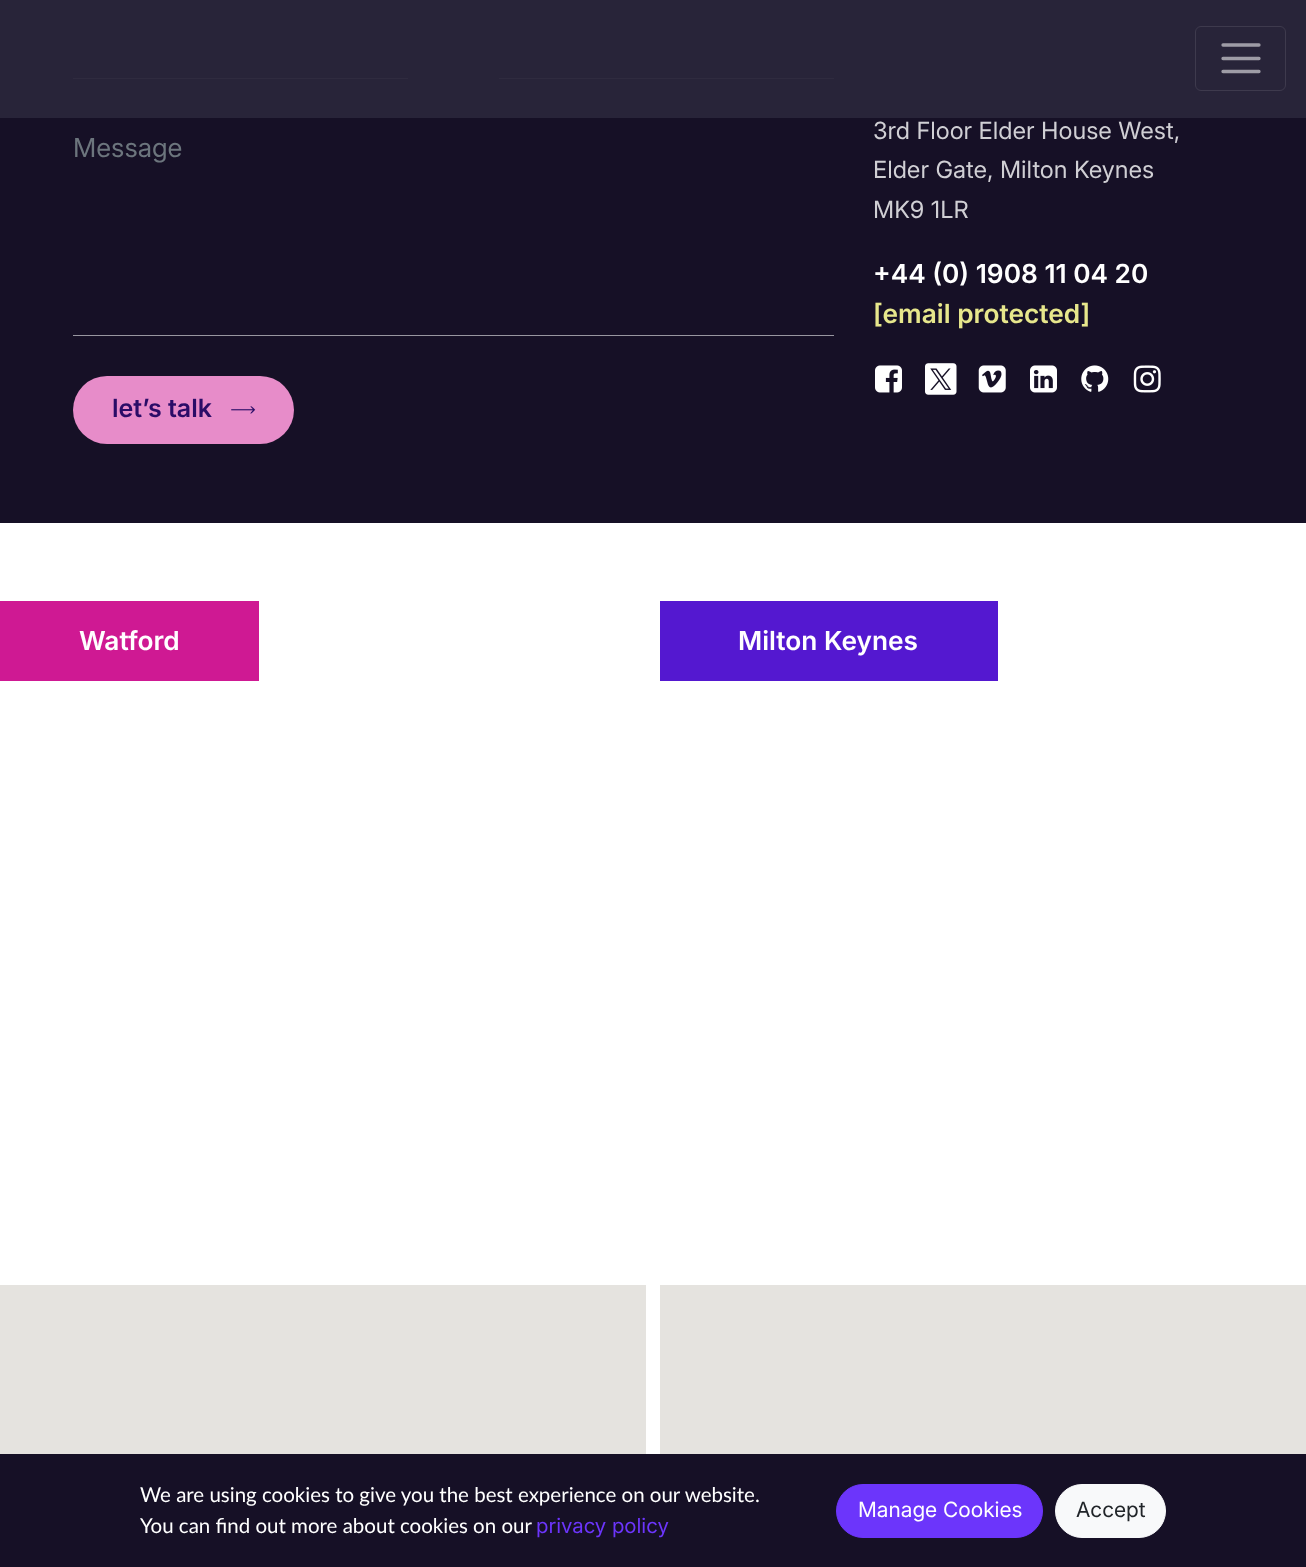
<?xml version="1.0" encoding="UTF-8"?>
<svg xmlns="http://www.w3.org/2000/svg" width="1306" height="1567">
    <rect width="100%" height="100%" fill="#FFFFFF"/>
    <rect x="0" y="0" width="1306" height="118" fill="#282439"/>
    <rect x="1195.5" y="26.5" width="90" height="64" rx="5.5" fill="none" stroke="#3E3A4D"/>
    <path d="M 1223 45 H 1259 M 1223 58.5 H 1259 M 1223 71.5 H 1259" fill="none" stroke="#9E9CA6" stroke-width="3.3" stroke-linecap="round"/>
    <rect x="0" y="118" width="1306" height="405" fill="#161026"/>
    <rect x="73" y="78" width="335" height="1" fill="#2F2B3F"/>
    <rect x="499" y="78" width="335" height="1" fill="#2F2B3F"/>
    <rect x="73" y="335" width="761" height="1" fill="#9896A0"/>
    <text x="73" y="157" font-family="Inter" font-size="26.25" fill="#6C757D">Message</text>
    <rect x="73" y="376" width="221" height="68" rx="34" fill="#E78CC9"/>
    <text x="112" y="417" font-family="Inter" font-size="25" font-weight="600" fill="#2A0C67">let’s talk</text>
    <image x="231" y="406" width="25" height="8" href="img_01.png"/>
    <text font-family="'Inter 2'" font-size="23.75" fill="#D0CFD4">
        <tspan x="873" y="139">3rd Floor Elder House West,</tspan>
        <tspan x="873" y="178">Elder Gate, Milton Keynes</tspan>
        <tspan x="873" y="218">MK9 1LR</tspan>
    </text>
    <text x="873" y="283" font-family="Inter" font-size="26.25" font-weight="600" fill="#FFFFFF">+44 (0) 1908 11 04 20</text>
    <text x="873" y="323" font-family="Inter" font-size="26.25" font-weight="600" fill="#E7E78C">[email protected]</text>
    <image x="875" y="365" width="27" height="28" href="img_02.png"/>
    <image x="925" y="363" width="32" height="32" href="img_03.png"/>
    <image x="978" y="365" width="28" height="28" href="img_04.png"/>
    <image x="1030" y="365" width="27" height="28" href="img_05.png"/>
    <image x="1081" y="365" width="28" height="27" href="img_06.png"/>
    <image x="1133" y="365" width="28" height="28" href="img_07.png"/>
    <rect x="0" y="601" width="259" height="80" fill="#CF1993"/>
    <text x="79" y="650" font-family="Inter" font-size="26.25" font-weight="600" fill="#FFFFFF">Watford</text>
    <rect x="660" y="601" width="338" height="80" fill="#5418D0"/>
    <text x="738" y="650" font-family="Inter" font-size="26.25" font-weight="600" fill="#FFFFFF">Milton Keynes</text>
    <rect x="0" y="1285" width="646" height="169" fill="#E5E3DF"/>
    <rect x="660" y="1285" width="646" height="169" fill="#E5E3DF"/>
    <rect x="0" y="1454" width="1306" height="113" fill="#161026"/>
    <text font-family="Lato" font-size="20.5" fill="#FFFFFF">
        <tspan x="140" y="1502">We are using cookies to give you the best experience on our website.</tspan>
        <tspan x="140" y="1533">You can find out more about cookies on our</tspan>
    </text>
    <text x="536" y="1533" font-family="'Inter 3'" font-size="20.5" fill="#6C35FB">privacy policy</text>
    <rect x="836.5" y="1484.5" width="206" height="53" rx="26.5" fill="#6C35FB" stroke="#6C35FB"/>
    <text x="858" y="1517" font-family="'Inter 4'" font-size="21" fill="#FFFFFF">Manage Cookies</text>
    <rect x="1055.5" y="1484.5" width="110" height="53" rx="26.5" fill="#F8F9FA" stroke="#F8F9FA"/>
    <text x="1076" y="1517" font-family="'Inter 4'" font-size="21" fill="#212529">Accept</text>
</svg>
